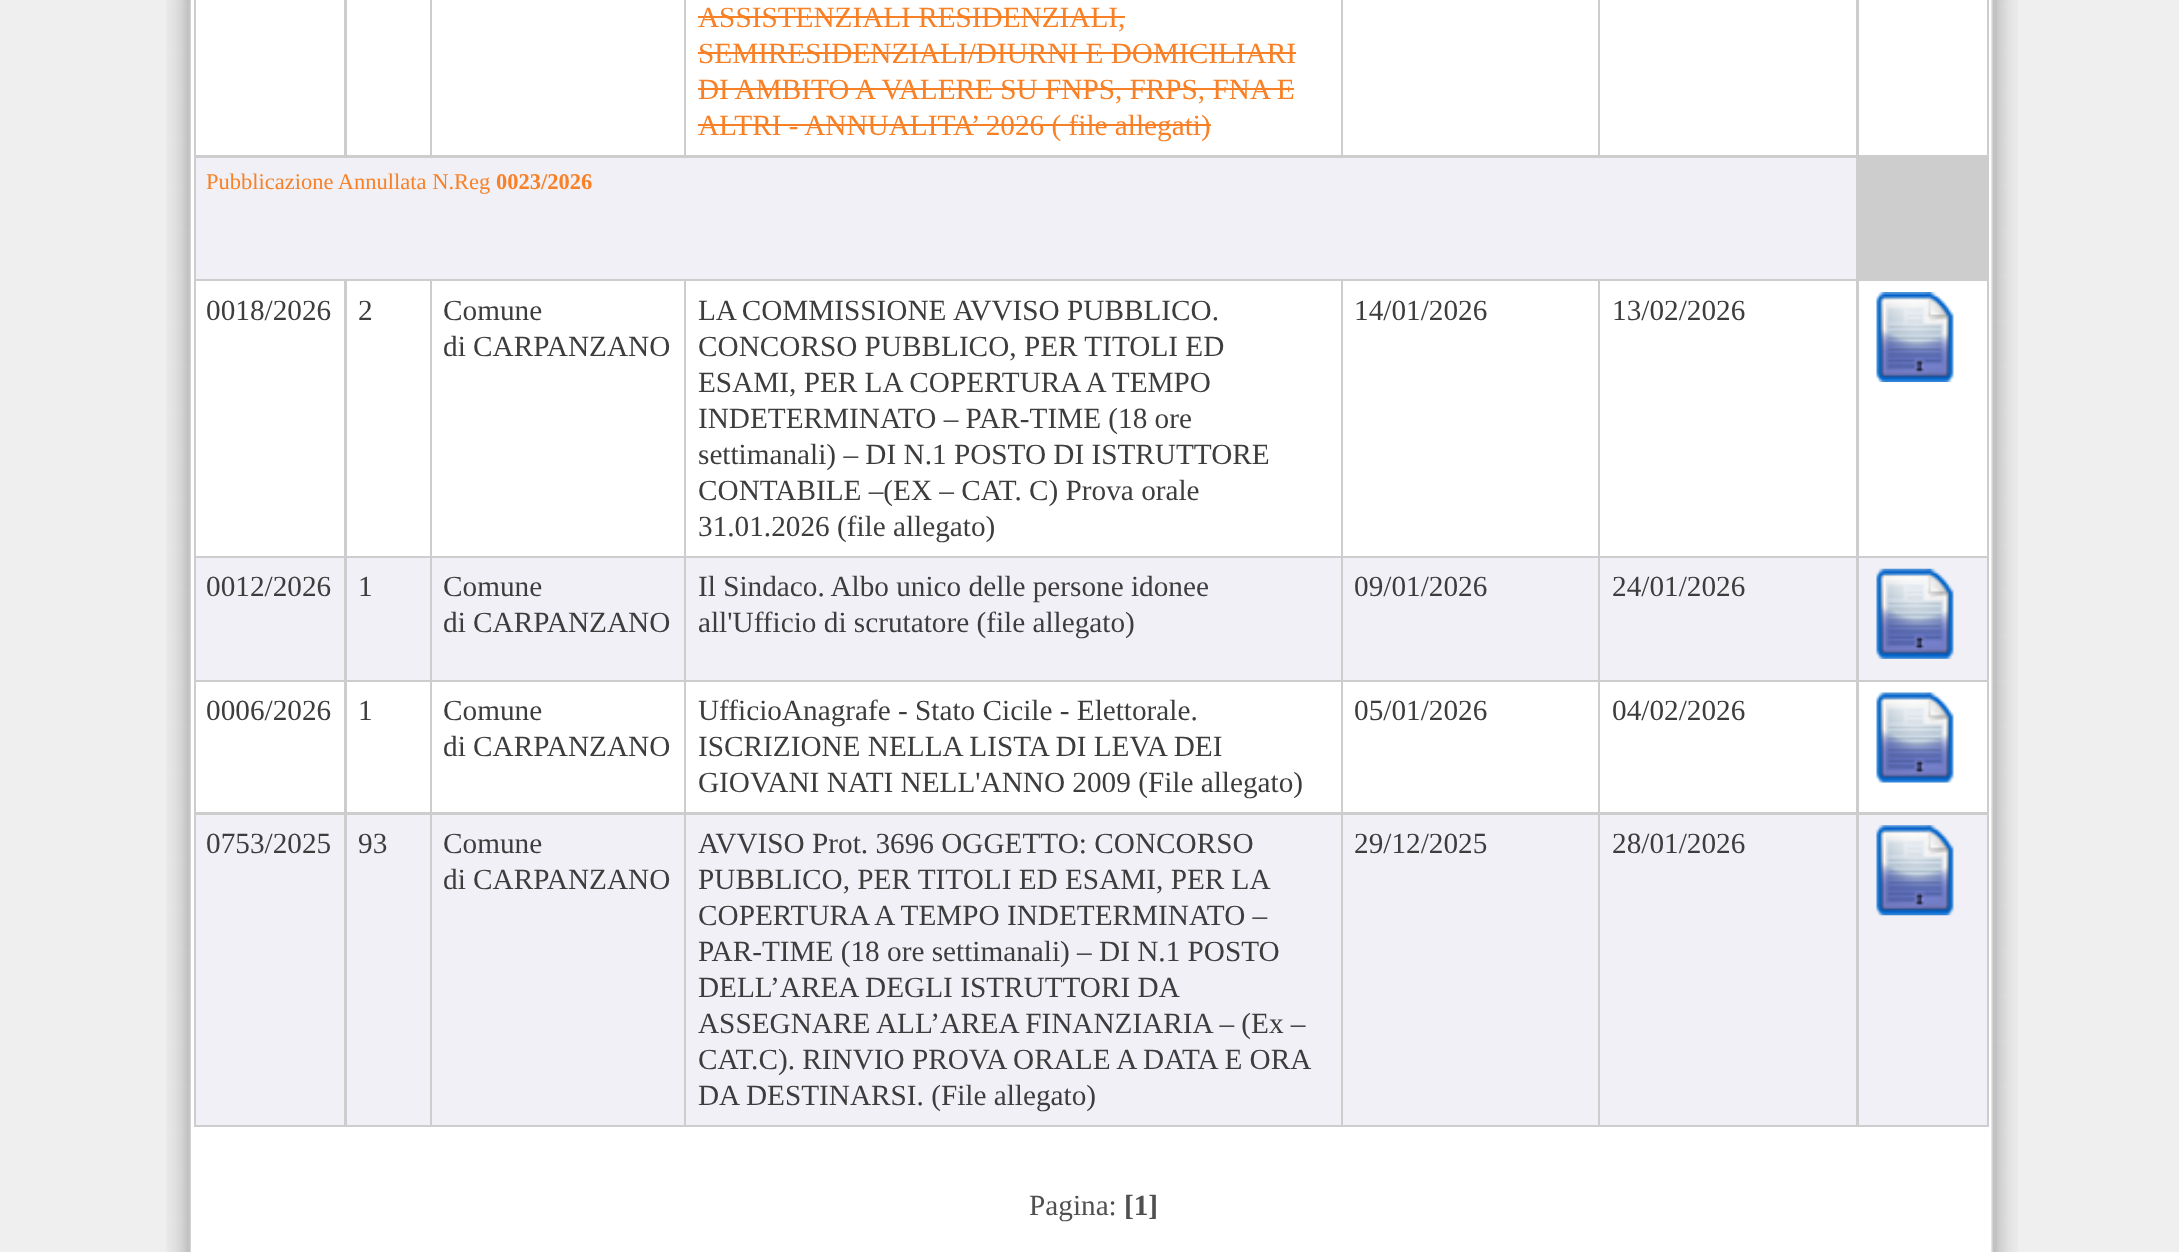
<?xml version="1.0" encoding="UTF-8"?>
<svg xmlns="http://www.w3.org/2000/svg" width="2179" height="1252">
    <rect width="100%" height="100%" fill="#EFEFEF"/>
    <image x="166" y="0" width="1852" height="1252" href="img_01.png"/>
    <rect x="191" y="0" width="1800" height="1252" fill="#FFFFFF"/>
    <rect x="194" y="0" width="1795" height="1127" fill="#CDCDCD"/>
    <rect x="196" y="0" width="148" height="155" fill="#FFFFFF"/>
    <rect x="347" y="0" width="83" height="155" fill="#FFFFFF"/>
    <rect x="432" y="0" width="252" height="155" fill="#FFFFFF"/>
    <rect x="686" y="0" width="655" height="155" fill="#FFFFFF"/>
    <text x="698" y="27" font-family="Liberation Serif" font-size="29.25" fill="#F88127">ASSISTENZIALI RESIDENZIALI,</text>
    <rect x="698" y="16" width="427" height="2" fill="#F88127"/>
    <text x="698" y="63" font-family="Liberation Serif" font-size="29.25" fill="#F88127">SEMIRESIDENZIALI/DIURNI E DOMICILIARI</text>
    <rect x="698" y="52" width="598" height="2" fill="#F88127"/>
    <text x="698" y="99" font-family="Liberation Serif" font-size="29.25" fill="#F88127">DI AMBITO A VALERE SU FNPS, FRPS, FNA E</text>
    <rect x="698" y="88" width="596" height="2" fill="#F88127"/>
    <text x="698" y="135" font-family="Liberation Serif" font-size="29.25" fill="#F88127">ALTRI - ANNUALITA’ 2026 ( file allegati)</text>
    <rect x="698" y="124" width="513" height="2" fill="#F88127"/>
    <rect x="1343" y="0" width="255" height="155" fill="#FFFFFF"/>
    <rect x="1600" y="0" width="256" height="155" fill="#FFFFFF"/>
    <rect x="1859" y="0" width="128" height="155" fill="#FFFFFF"/>
    <rect x="196" y="158" width="1660" height="121" fill="#F0F0F6"/>
    <text x="206" y="189" font-family="Liberation Serif" font-size="22.5" fill="#F88127">Pubblicazione Annullata N.Reg</text>
    <text x="496" y="189" font-family="Liberation Serif" font-size="22.5" font-weight="700" fill="#F88127">0023/2026</text>
    <rect x="196" y="281" width="148" height="275" fill="#FFFFFF"/>
    <text x="206" y="320" font-family="Liberation Serif" font-size="29.25" fill="#3D3D3D">0018/2026</text>
    <rect x="347" y="281" width="83" height="275" fill="#FFFFFF"/>
    <text x="358" y="320" font-family="Liberation Serif" font-size="29.25" fill="#3D3D3D">2</text>
    <rect x="432" y="281" width="252" height="275" fill="#FFFFFF"/>
    <text font-family="Liberation Serif" font-size="29.25" fill="#3D3D3D">
        <tspan x="443" y="320">Comune</tspan>
        <tspan x="443" y="356">di CARPANZANO</tspan>
    </text>
    <rect x="686" y="281" width="655" height="275" fill="#FFFFFF"/>
    <text x="698" y="320" word-spacing="-1" font-family="Liberation Serif" font-size="29.25" fill="#3D3D3D">LA COMMISSIONE</text>
    <text x="953" y="320" font-family="Liberation Serif" font-size="29.25" fill="#3D3D3D">AVVISO PUBBLICO.</text>
    <text font-family="Liberation Serif" font-size="29.25" fill="#3D3D3D">
        <tspan x="698" y="356">CONCORSO PUBBLICO, PER TITOLI ED</tspan>
        <tspan x="698" y="392">ESAMI, PER LA COPERTURA A TEMPO</tspan>
        <tspan x="698" y="428">INDETERMINATO – PAR-TIME (18 ore</tspan>
        <tspan x="698" y="464">settimanali) – DI N.1 POSTO DI ISTRUTTORE</tspan>
        <tspan x="698" y="500">CONTABILE –(EX – CAT. C) Prova orale</tspan>
        <tspan x="698" y="536">31.01.2026 (file allegato)</tspan>
    </text>
    <rect x="1343" y="281" width="255" height="275" fill="#FFFFFF"/>
    <text x="1354" y="320" font-family="Liberation Serif" font-size="29.25" fill="#3D3D3D">14/01/2026</text>
    <rect x="1600" y="281" width="256" height="275" fill="#FFFFFF"/>
    <text x="1612" y="320" font-family="Liberation Serif" font-size="29.25" fill="#3D3D3D">13/02/2026</text>
    <rect x="1859" y="281" width="128" height="275" fill="#FFFFFF"/>
    <image x="1876" y="292" width="78" height="90" href="img_02.png"/>
    <rect x="196" y="558" width="148" height="122" fill="#F0F0F6"/>
    <text x="206" y="596" font-family="Liberation Serif" font-size="29.25" fill="#3D3D3D">0012/2026</text>
    <rect x="347" y="558" width="83" height="122" fill="#F0F0F6"/>
    <text x="358" y="596" font-family="Liberation Serif" font-size="29.25" fill="#3D3D3D">1</text>
    <rect x="432" y="558" width="252" height="122" fill="#F0F0F6"/>
    <text font-family="Liberation Serif" font-size="29.25" fill="#3D3D3D">
        <tspan x="443" y="596">Comune</tspan>
        <tspan x="443" y="632">di CARPANZANO</tspan>
    </text>
    <rect x="686" y="558" width="655" height="122" fill="#F0F0F6"/>
    <text font-family="Liberation Serif" font-size="29.25" fill="#3D3D3D">
        <tspan x="698" y="596">Il Sindaco. Albo unico delle persone idonee</tspan>
        <tspan x="698" y="632">all'Ufficio di scrutatore (file allegato)</tspan>
    </text>
    <rect x="1343" y="558" width="255" height="122" fill="#F0F0F6"/>
    <text x="1354" y="596" font-family="Liberation Serif" font-size="29.25" fill="#3D3D3D">09/01/2026</text>
    <rect x="1600" y="558" width="256" height="122" fill="#F0F0F6"/>
    <text x="1612" y="596" font-family="Liberation Serif" font-size="29.25" fill="#3D3D3D">24/01/2026</text>
    <rect x="1859" y="558" width="128" height="122" fill="#F0F0F6"/>
    <image x="1876" y="568" width="78" height="91" href="img_03.png"/>
    <rect x="196" y="682" width="148" height="130" fill="#FFFFFF"/>
    <text x="206" y="720" font-family="Liberation Serif" font-size="29.25" fill="#3D3D3D">0006/2026</text>
    <rect x="347" y="682" width="83" height="130" fill="#FFFFFF"/>
    <text x="358" y="720" font-family="Liberation Serif" font-size="29.25" fill="#3D3D3D">1</text>
    <rect x="432" y="682" width="252" height="130" fill="#FFFFFF"/>
    <text font-family="Liberation Serif" font-size="29.25" fill="#3D3D3D">
        <tspan x="443" y="720">Comune</tspan>
        <tspan x="443" y="756">di CARPANZANO</tspan>
    </text>
    <rect x="686" y="682" width="655" height="130" fill="#FFFFFF"/>
    <text font-family="Liberation Serif" font-size="29.25" fill="#3D3D3D">
        <tspan x="698" y="720">UfficioAnagrafe - Stato Cicile - Elettorale.</tspan>
        <tspan x="698" y="756">ISCRIZIONE NELLA LISTA DI LEVA DEI</tspan>
        <tspan x="698" y="792">GIOVANI NATI NELL'ANNO 2009 (File allegato)</tspan>
    </text>
    <rect x="1343" y="682" width="255" height="130" fill="#FFFFFF"/>
    <text x="1354" y="720" font-family="Liberation Serif" font-size="29.25" fill="#3D3D3D">05/01/2026</text>
    <rect x="1600" y="682" width="256" height="130" fill="#FFFFFF"/>
    <text x="1612" y="720" font-family="Liberation Serif" font-size="29.25" fill="#3D3D3D">04/02/2026</text>
    <rect x="1859" y="682" width="128" height="130" fill="#FFFFFF"/>
    <image x="1876" y="692" width="78" height="91" href="img_04.png"/>
    <rect x="196" y="815" width="148" height="310" fill="#F0F0F6"/>
    <text x="206" y="853" font-family="Liberation Serif" font-size="29.25" fill="#3D3D3D">0753/2025</text>
    <rect x="347" y="815" width="83" height="310" fill="#F0F0F6"/>
    <text x="358" y="853" font-family="Liberation Serif" font-size="29.25" fill="#3D3D3D">93</text>
    <rect x="432" y="815" width="252" height="310" fill="#F0F0F6"/>
    <text font-family="Liberation Serif" font-size="29.25" fill="#3D3D3D">
        <tspan x="443" y="853">Comune</tspan>
        <tspan x="443" y="889">di CARPANZANO</tspan>
    </text>
    <rect x="686" y="815" width="655" height="310" fill="#F0F0F6"/>
    <text font-family="Liberation Serif" font-size="29.25" fill="#3D3D3D">
        <tspan x="698" y="853">AVVISO Prot. 3696 OGGETTO: CONCORSO</tspan>
        <tspan x="698" y="889">PUBBLICO, PER TITOLI ED ESAMI, PER LA</tspan>
        <tspan x="698" y="925">COPERTURA A TEMPO INDETERMINATO –</tspan>
        <tspan x="698" y="961">PAR-TIME (18 ore settimanali) – DI N.1 POSTO</tspan>
        <tspan x="698" y="997">DELL’AREA DEGLI ISTRUTTORI DA</tspan>
        <tspan x="698" y="1033">ASSEGNARE ALL’AREA FINANZIARIA – (Ex –</tspan>
        <tspan x="698" y="1069">CAT.C). RINVIO PROVA ORALE A DATA E ORA</tspan>
        <tspan x="698" y="1105">DA DESTINARSI. (File allegato)</tspan>
    </text>
    <rect x="1343" y="815" width="255" height="310" fill="#F0F0F6"/>
    <text x="1354" y="853" font-family="Liberation Serif" font-size="29.25" fill="#3D3D3D">29/12/2025</text>
    <rect x="1600" y="815" width="256" height="310" fill="#F0F0F6"/>
    <text x="1612" y="853" font-family="Liberation Serif" font-size="29.25" fill="#3D3D3D">28/01/2026</text>
    <rect x="1859" y="815" width="128" height="310" fill="#F0F0F6"/>
    <image x="1876" y="825" width="78" height="91" href="img_05.png"/>
    <text x="1029" y="1215" font-family="Liberation Serif" font-size="29.25" fill="#505050">Pagina:</text>
    <text x="1124" y="1215" font-family="Liberation Serif" font-size="29.25" font-weight="700" fill="#505050">[1]</text>
</svg>
